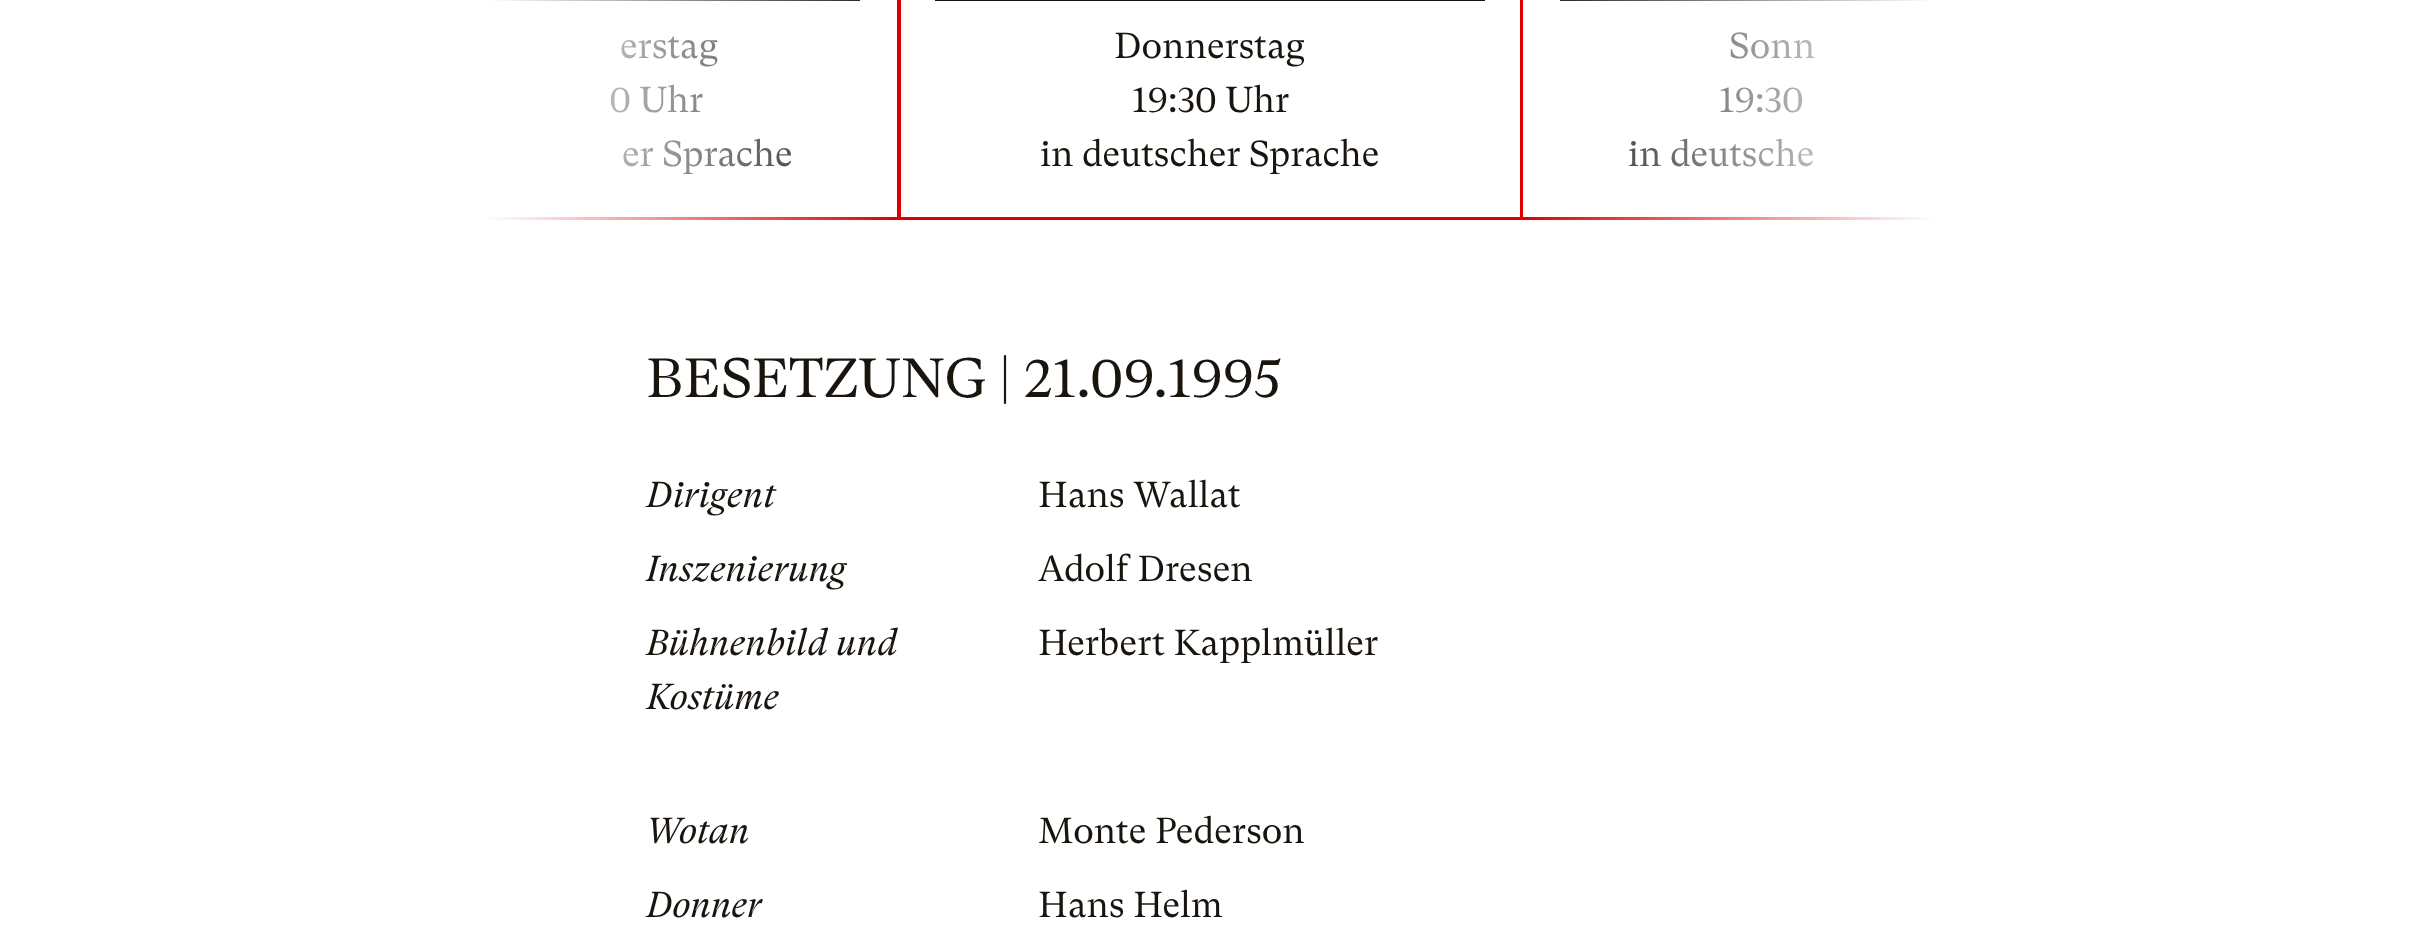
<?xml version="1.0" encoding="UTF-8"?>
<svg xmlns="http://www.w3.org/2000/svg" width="2416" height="930">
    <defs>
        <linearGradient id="g1" gradientUnits="userSpaceOnUse" x1="348" y1="-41" x2="900" y2="-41"><stop offset="0.25" stop-color="#FFFFFF"/><stop offset="1" stop-color="#FFFFFF" stop-opacity="0"/></linearGradient>
        <linearGradient id="g2" gradientUnits="userSpaceOnUse" x1="2075" y1="-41" x2="1520" y2="-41"><stop offset="0.25" stop-color="#FFFFFF"/><stop offset="1" stop-color="#FFFFFF" stop-opacity="0"/></linearGradient>
    </defs>
    <rect width="100%" height="100%" fill="#FFFFFF"/>
    <rect x="349.5" y="-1.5" width="549" height="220" fill="none" stroke="#DE0000" stroke-width="3"/>
    <rect x="488" y="0" width="372" height="1" fill="#19140E"/>
    <text x="620" y="58" font-family="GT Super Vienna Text" font-size="36" fill="#19140E">erstag</text>
    <text x="609" y="112" font-family="GT Super Vienna Text" font-size="36" fill="#19140E">0 Uhr</text>
    <text x="622" y="166" font-family="GT Super Vienna Text" font-size="36" fill="#19140E">er Sprache</text>
    <rect x="348" y="0" width="543" height="220" fill="url(#g1)"/>
    <rect x="899.5" y="-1.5" width="622" height="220" fill="none" stroke="#DE0000" stroke-width="3"/>
    <rect x="935" y="0" width="550" height="1" fill="#19140E"/>
    <text x="1114" y="58" font-family="GT Super Vienna Text" font-size="36" fill="#19140E">Donnerstag</text>
    <text x="1132" y="112" font-family="GT Super Vienna Text" font-size="36" fill="#19140E">19:30 Uhr</text>
    <text x="1040" y="166" font-family="GT Super Vienna Text" font-size="36" fill="#19140E">in deutscher Sprache</text>
    <rect x="1521.5" y="-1.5" width="552" height="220" fill="none" stroke="#DE0000" stroke-width="3"/>
    <rect x="1560" y="0" width="374" height="1" fill="#19140E"/>
    <text x="1729" y="58" font-family="GT Super Vienna Text" font-size="36" fill="#19140E">Sonn</text>
    <text x="1719" y="112" font-family="GT Super Vienna Text" font-size="36" fill="#19140E">19:30</text>
    <text x="1628" y="166" font-family="GT Super Vienna Text" font-size="36" fill="#19140E">in deutsche</text>
    <rect x="1529" y="0" width="546" height="220" fill="url(#g2)"/>
    <text x="646" y="397" font-family="GT Super Vienna Text" font-size="55" fill="#19140E">BESETZUNG | 21.09.1995</text>
    <text x="646" y="507" font-family="GT Super Vienna Text" font-size="36" font-style="italic" fill="#19140E">Dirigent</text>
    <text x="1038" y="507" font-family="GT Super Vienna Text" font-size="36" fill="#19140E">Hans Wallat</text>
    <text x="646" y="581" font-family="GT Super Vienna Text" font-size="36" font-style="italic" fill="#19140E">Inszenierung</text>
    <text x="1038" y="581" font-family="GT Super Vienna Text" font-size="36" fill="#19140E">Adolf Dresen</text>
    <text font-family="GT Super Vienna Text" font-size="36" font-style="italic" fill="#19140E">
        <tspan x="646" y="655">Bühnenbild und</tspan>
        <tspan x="646" y="709">Kostüme</tspan>
    </text>
    <text x="1038" y="655" font-family="GT Super Vienna Text" font-size="36" fill="#19140E">Herbert Kapplmüller</text>
    <text x="646" y="843" font-family="GT Super Vienna Text" font-size="36" font-style="italic" fill="#19140E">Wotan</text>
    <text x="1038" y="843" font-family="GT Super Vienna Text" font-size="36" fill="#19140E">Monte Pederson</text>
    <text x="646" y="917" font-family="GT Super Vienna Text" font-size="36" font-style="italic" fill="#19140E">Donner</text>
    <text x="1038" y="917" font-family="GT Super Vienna Text" font-size="36" fill="#19140E">Hans Helm</text>
</svg>
